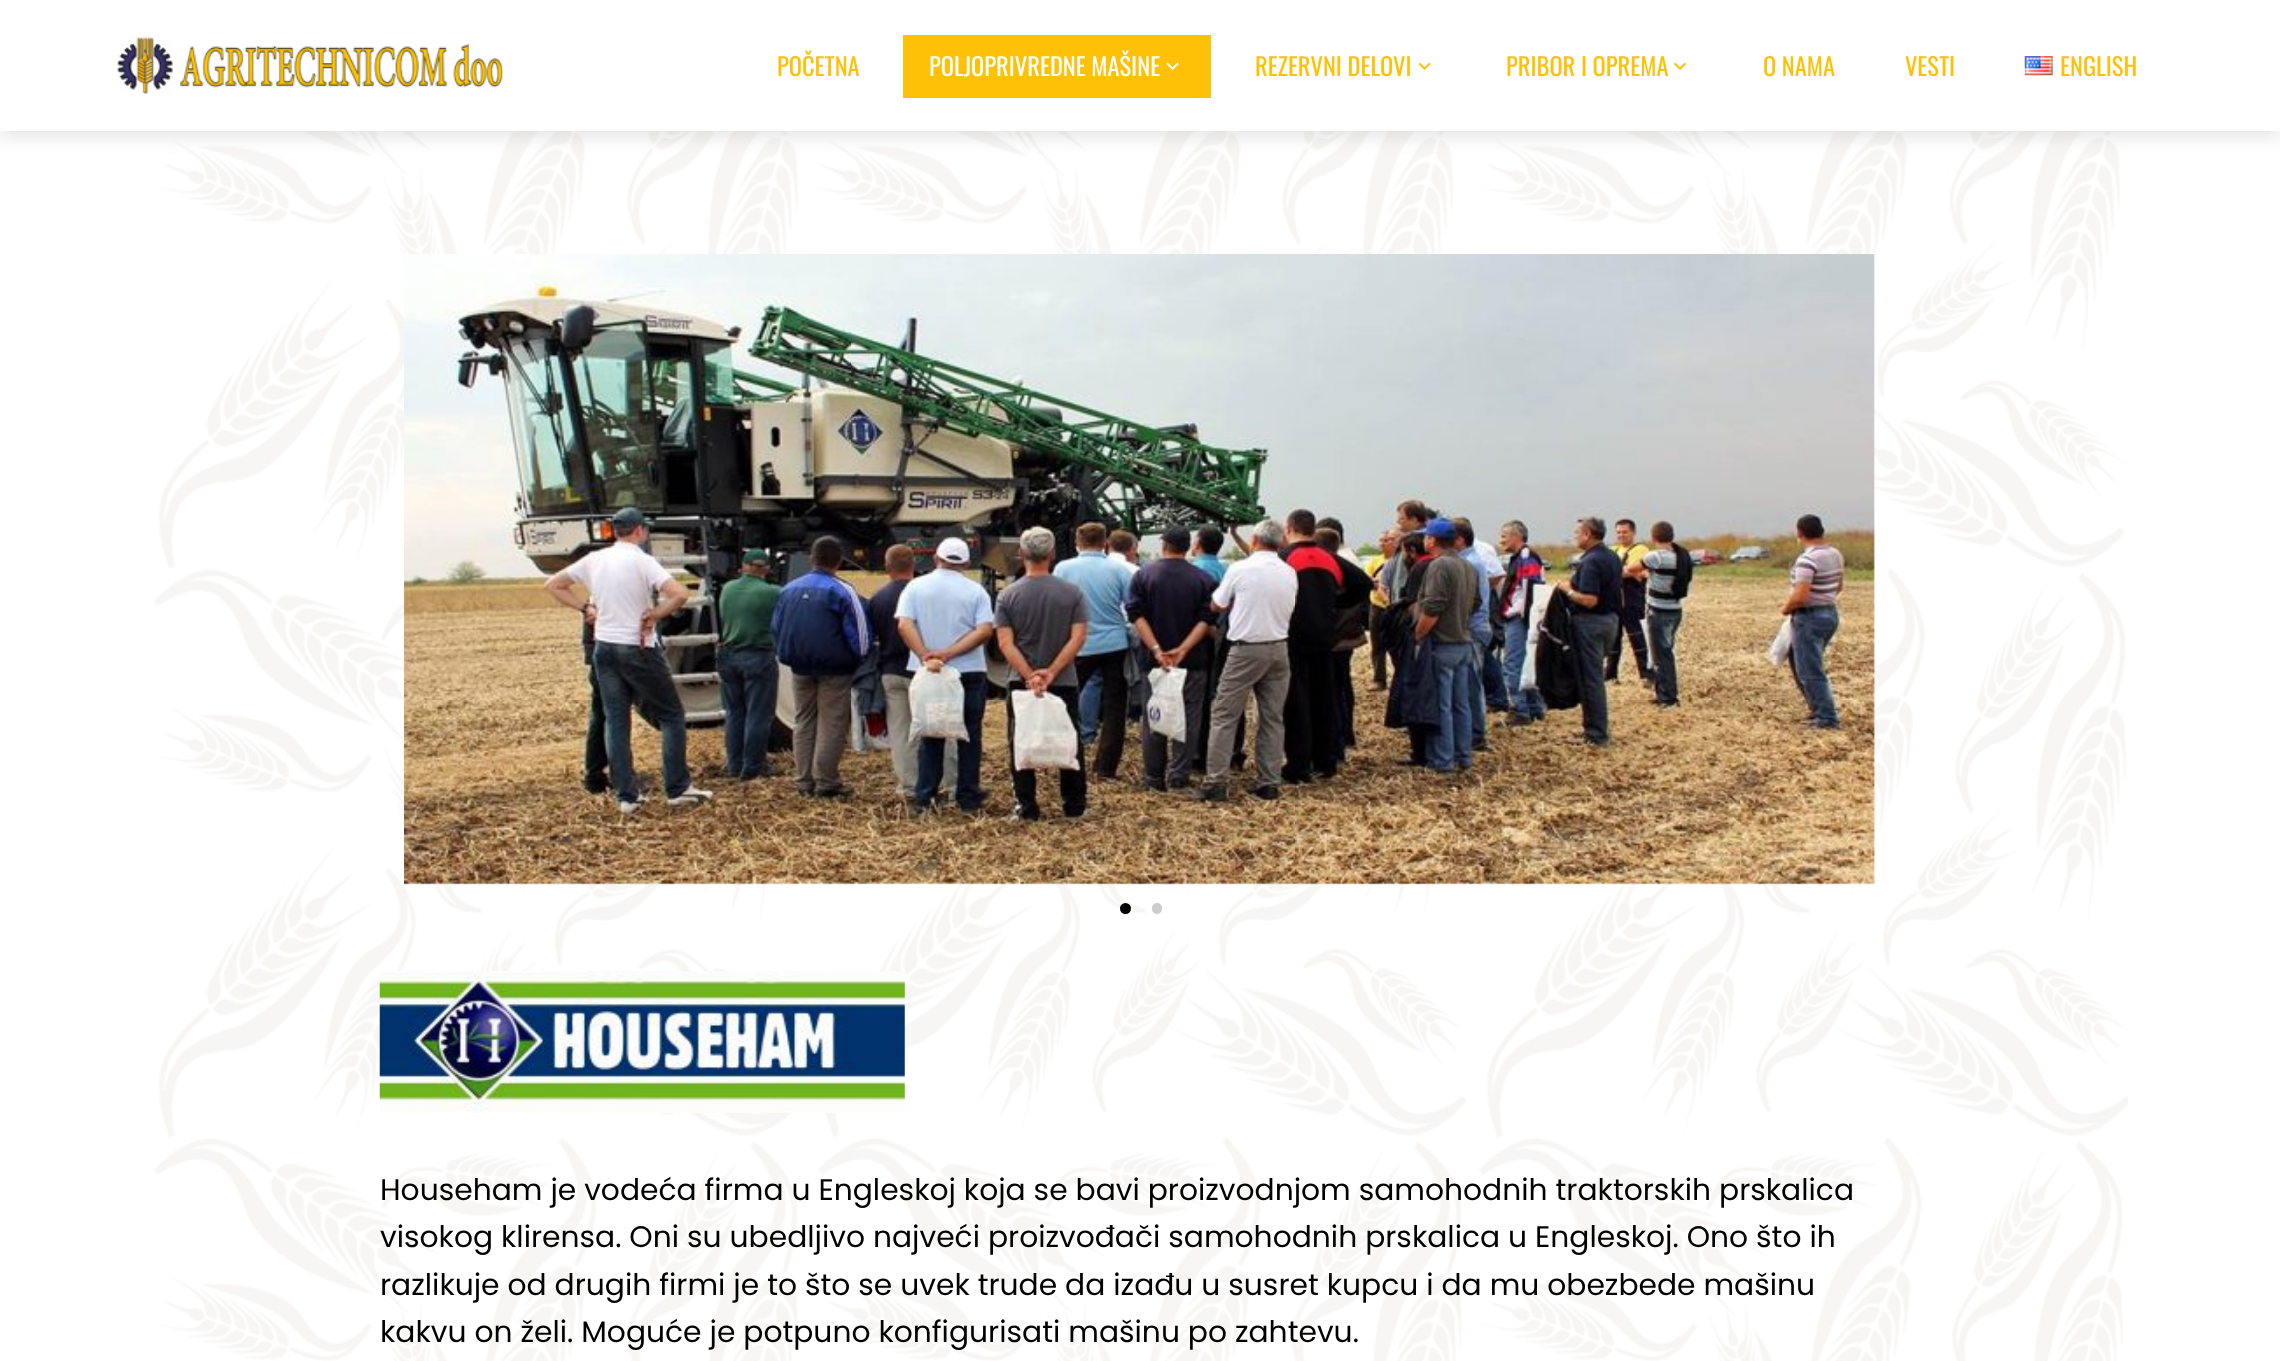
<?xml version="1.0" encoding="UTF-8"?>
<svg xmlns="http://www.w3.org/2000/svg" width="2280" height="1361">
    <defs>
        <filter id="blur1" x="-50%" y="-200%" width="200%" height="500%"><feGaussianBlur stdDeviation="9"/></filter>
    </defs>
    <rect width="100%" height="100%" fill="#FFFFFF"/>
    <image x="154" y="131" width="1974" height="1230" href="img_01.png"/>
    <rect x="0" y="5" width="2280" height="132" fill="#000000" fill-opacity="0.1" filter="url(#blur1)"/>
    <rect x="0" y="0" width="2280" height="131" fill="#FFFFFF"/>
    <image x="117" y="37" width="386" height="57" href="img_02.png"/>
    <text x="777" y="76" font-family="Oswald" font-size="24.5" fill="#FFC107">POČETNA</text>
    <rect x="903" y="35" width="308" height="63" fill="#FFC107"/>
    <text x="929" y="76" font-family="Oswald" font-size="24.5" fill="#FFFFFF">POLJOPRIVREDNE MAŠINE</text>
    <image x="1166" y="62" width="13" height="8" href="img_03.png"/>
    <text x="1255" y="76" font-family="Oswald" font-size="24.5" fill="#FFC107">REZERVNI DELOVI</text>
    <image x="1418" y="62" width="13" height="8" href="img_04.png"/>
    <text x="1506" y="76" font-family="Oswald" font-size="24.5" fill="#FFC107">PRIBOR I OPREMA</text>
    <image x="1674" y="62" width="12" height="8" href="img_05.png"/>
    <text x="1763" y="76" font-family="Oswald" font-size="24.5" fill="#FFC107">O NAMA</text>
    <text x="1905" y="76" font-family="Oswald" font-size="24.5" fill="#FFC107">VESTI</text>
    <image x="2024" y="56" width="29" height="20" href="img_06.png"/>
    <text x="2060" y="76" font-family="Oswald" font-size="24.5" fill="#FFC107">ENGLISH</text>
    <image x="404" y="254" width="1471" height="631" href="img_07.png"/>
    <circle cx="1125.5" cy="908.5" r="5.5" fill="#000000"/>
    <rect x="1152" y="903" width="10" height="11" rx="5" fill="#CCCCCC"/>
    <image x="379" y="971" width="526" height="142" href="img_08.png"/>
    <text font-family="Poppins" font-size="29.75" fill="#000000">
        <tspan x="380" y="1200">Househam je vodeća firma u Engleskoj koja se bavi proizvodnjom samohodnih traktorskih prskalica</tspan>
        <tspan x="380" y="1247">visokog klirensa. Oni su ubedljivo najveći proizvođači samohodnih prskalica u Engleskoj. Ono što ih</tspan>
        <tspan x="380" y="1295">razlikuje od drugih firmi je to što se uvek trude da izađu u susret kupcu i da mu obezbede mašinu</tspan>
        <tspan x="380" y="1342">kakvu on želi. Moguće je potpuno konfigurisati mašinu po zahtevu.</tspan>
    </text>
</svg>
